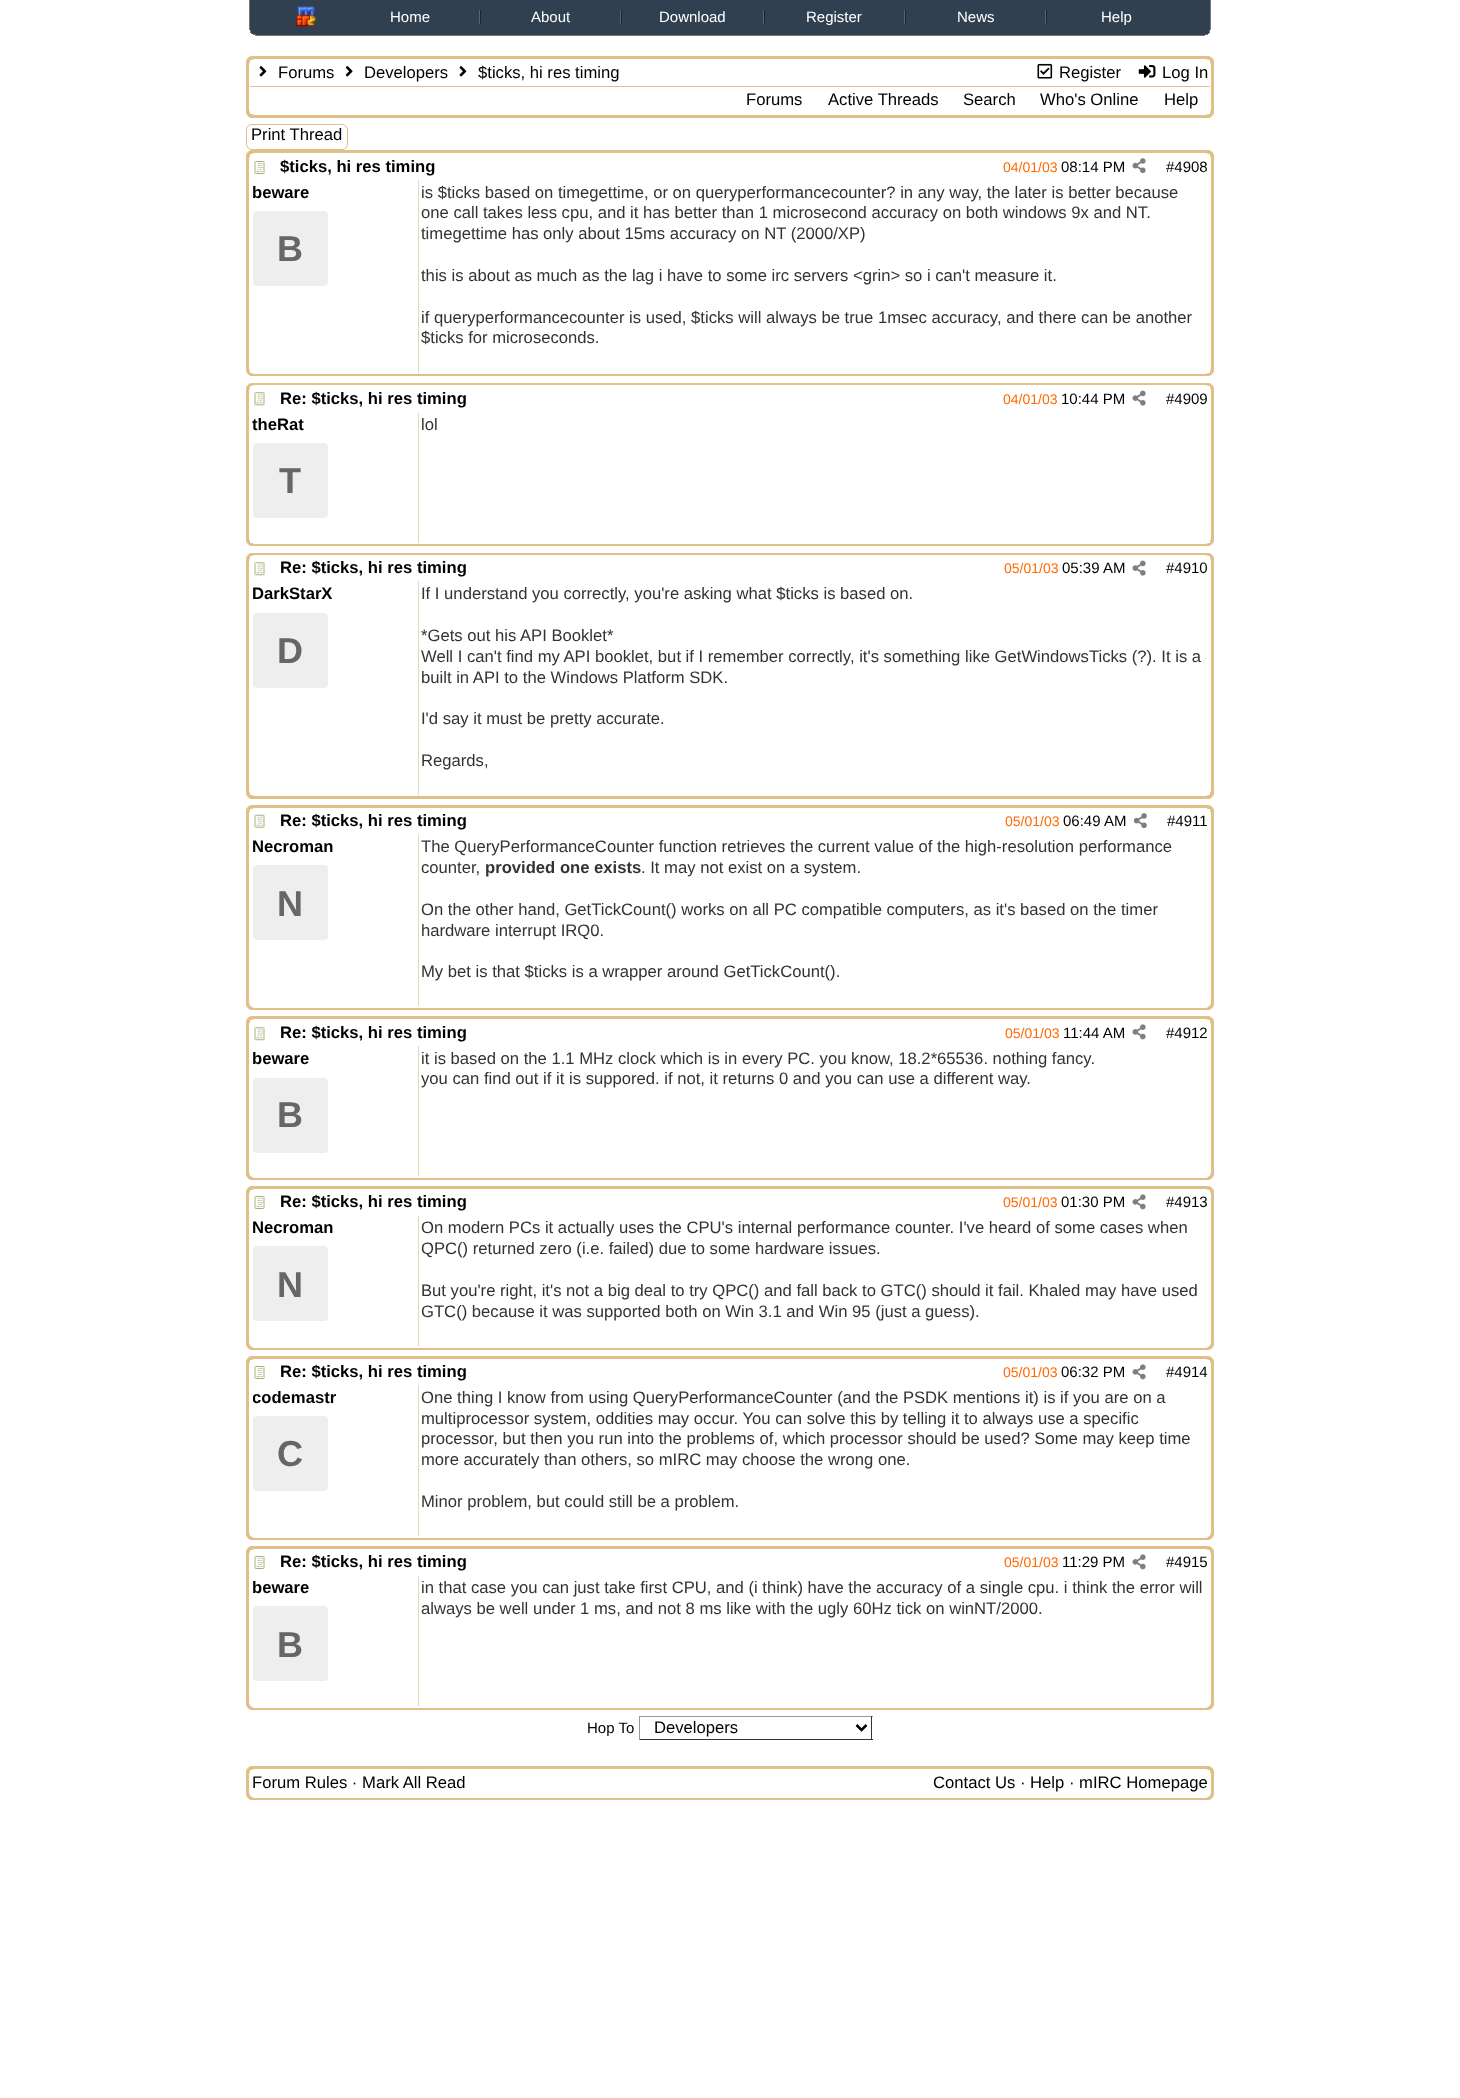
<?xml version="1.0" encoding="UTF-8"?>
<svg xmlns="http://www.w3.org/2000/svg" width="1460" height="2098">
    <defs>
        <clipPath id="clip1"><rect x="253" y="1388" width="162" height="21"/></clipPath>
    </defs>
    <rect width="100%" height="100%" fill="#FFFFFF"/>
    <rect x="250" y="0" width="960" height="33" fill="#304050"/>
    <rect x="1210" y="0" width="1" height="30" fill="#777777"/>
    <rect x="249" y="0" width="1" height="30" fill="#777777"/>
    <image x="296" y="6" width="21" height="21" href="img_01.png"/>
    <text x="390" y="22" font-family="Liberation Sans" font-size="15" fill="#FFFFFF">Home</text>
    <rect x="479" y="10" width="1" height="14" fill="#556677"/>
    <rect x="480" y="10" width="1" height="14" fill="#222222"/>
    <text x="531" y="22" font-family="Liberation Sans" font-size="15" fill="#FFFFFF">About</text>
    <rect x="620" y="10" width="1" height="14" fill="#556677"/>
    <rect x="621" y="10" width="1" height="14" fill="#222222"/>
    <text x="659" y="22" font-family="Liberation Sans" font-size="15" fill="#FFFFFF">Download</text>
    <rect x="763" y="10" width="1" height="14" fill="#556677"/>
    <rect x="764" y="10" width="1" height="14" fill="#222222"/>
    <text x="806" y="22" font-family="Liberation Sans" font-size="15" fill="#FFFFFF">Register</text>
    <rect x="904" y="10" width="1" height="14" fill="#556677"/>
    <rect x="905" y="10" width="1" height="14" fill="#222222"/>
    <text x="957" y="22" font-family="Liberation Sans" font-size="15" fill="#FFFFFF">News</text>
    <rect x="1045" y="10" width="1" height="14" fill="#556677"/>
    <rect x="1046" y="10" width="1" height="14" fill="#222222"/>
    <text x="1101" y="22" font-family="Liberation Sans" font-size="15" fill="#FFFFFF">Help</text>
    <rect x="1209" y="30" width="1" height="3" fill="#777777"/>
    <rect x="250" y="30" width="1" height="3" fill="#777777"/>
    <rect x="251" y="33" width="958" height="1" fill="#304050"/>
    <rect x="1208" y="33" width="1" height="1" fill="#777777"/>
    <rect x="251" y="33" width="1" height="1" fill="#777777"/>
    <rect x="253" y="34" width="955" height="1" fill="#304050"/>
    <rect x="1205" y="34" width="3" height="1" fill="#777777"/>
    <rect x="253" y="34" width="3" height="1" fill="#777777"/>
    <rect x="255" y="35" width="950" height="1" fill="#777777"/>
    <rect x="246.5" y="56.5" width="967" height="61" rx="5.5" fill="#E0C088" stroke="#E0C088"/>
    <rect x="249.5" y="59.5" width="961" height="55" rx="5.5" fill="none" stroke="#FFFFFF"/>
    <rect x="250" y="60" width="960" height="26" fill="#FFFFFF"/>
    <image x="259" y="66" width="8" height="11" href="img_02.png"/>
    <text x="278" y="78" font-family="Liberation Sans" font-size="16.65" fill="#000000">Forums</text>
    <image x="345" y="66" width="8" height="11" href="img_03.png"/>
    <text x="364" y="78" font-family="Liberation Sans" font-size="16.65" fill="#000000">Developers</text>
    <image x="459" y="66" width="8" height="11" href="img_02.png"/>
    <text x="478" y="78" font-family="Liberation Sans" font-size="16.65" fill="#000000">$ticks, hi res timing</text>
    <image x="1037" y="63" width="16" height="16" href="img_04.png"/>
    <text x="1059" y="78" font-family="Liberation Sans" font-size="16.65" fill="#000000">Register</text>
    <image x="1138" y="65" width="18" height="13" href="img_05.png"/>
    <text x="1162" y="78" font-family="Liberation Sans" font-size="16.65" fill="#000000">Log In</text>
    <rect x="250" y="87" width="960" height="27" fill="#FFFFFF"/>
    <text x="746" y="105" font-family="Liberation Sans" font-size="16.65" fill="#000000">Forums</text>
    <text x="828" y="105" font-family="Liberation Sans" font-size="16.65" fill="#000000">Active Threads</text>
    <text x="963" y="105" font-family="Liberation Sans" font-size="16.65" fill="#000000">Search</text>
    <text x="1040" y="105" font-family="Liberation Sans" font-size="16.65" fill="#000000">Who's Online</text>
    <text x="1164" y="105" font-family="Liberation Sans" font-size="16.65" fill="#000000">Help</text>
    <rect x="246.5" y="124.5" width="101" height="25" rx="5.5" fill="none" stroke="#E0C088"/>
    <text x="251" y="140" font-family="Liberation Sans" font-size="16.65" fill="#000000">Print Thread</text>
    <rect x="246.5" y="150.5" width="967" height="225" rx="5.5" fill="#E0C088" stroke="#E0C088"/>
    <rect x="249.5" y="153.5" width="961" height="220" rx="5.5" fill="none" stroke="#FFFFFF"/>
    <rect x="250" y="154" width="960" height="26" fill="#FFFFFF"/>
    <image x="254" y="161" width="11" height="13" href="img_06.png"/>
    <text x="280" y="172" font-family="Liberation Sans" font-size="16.65" font-weight="700" fill="#000000">$ticks, hi res timing</text>
    <text x="1003" y="172" font-family="Liberation Sans" font-size="14" fill="#FF6A00">04/01/03</text>
    <text x="1061" y="172" font-family="Liberation Sans" font-size="15" fill="#000000">08:14 PM</text>
    <image x="1132" y="158" width="14" height="16" href="img_07.png"/>
    <text x="1166" y="172" font-family="Liberation Sans" font-size="15" fill="#000000">#4908</text>
    <rect x="250" y="180" width="168" height="193" fill="#FFFFFF"/>
    <text x="252" y="198" font-family="Liberation Sans" font-size="16.65" font-weight="700" fill="#000000">beware</text>
    <rect x="253" y="211" width="75" height="75" rx="4" fill="#EEEEEE"/>
    <text x="277" y="261" font-family="Liberation Sans" font-size="36" font-weight="700" fill="#666666">B</text>
    <rect x="419" y="180" width="791" height="193" fill="#FFFFFF"/>
    <rect x="418" y="180" width="1" height="193" fill="#DDDDBB"/>
    <text font-family="Liberation Sans" font-size="16.65" fill="#333333">
        <tspan x="421" y="198">is $ticks based on timegettime, or on queryperformancecounter? in any way, the later is better because</tspan>
        <tspan x="421" y="218">one call takes less cpu, and it has better than 1 microsecond accuracy on both windows 9x and NT.</tspan>
        <tspan x="421" y="239">timegettime has only about 15ms accuracy on NT (2000/XP)</tspan>
    </text>
    <text x="421" y="281" font-family="Liberation Sans" font-size="16.65" fill="#333333">this is about as much as the lag i have to some irc servers &lt;grin&gt; so i can't measure it.</text>
    <text font-family="Liberation Sans" font-size="16.65" fill="#333333">
        <tspan x="421" y="323">if queryperformancecounter is used, $ticks will always be true 1msec accuracy, and there can be another</tspan>
        <tspan x="421" y="343">$ticks for microseconds.</tspan>
    </text>
    <rect x="246.5" y="383.5" width="967" height="162" rx="5.5" fill="#E0C088" stroke="#E0C088"/>
    <rect x="249.5" y="385.5" width="961" height="158" rx="5.5" fill="none" stroke="#FFFFFF"/>
    <rect x="250" y="386" width="960" height="27" fill="#FFFFFF"/>
    <image x="254" y="392" width="11" height="14" href="img_08.png"/>
    <text x="280" y="404" font-family="Liberation Sans" font-size="16.65" font-weight="700" fill="#000000">Re: $ticks, hi res timing</text>
    <text x="1003" y="404" font-family="Liberation Sans" font-size="14" fill="#FF6A00">04/01/03</text>
    <text x="1061" y="404" font-family="Liberation Sans" font-size="15" fill="#000000">10:44 PM</text>
    <image x="1132" y="390" width="14" height="16" href="img_09.png"/>
    <text x="1166" y="404" font-family="Liberation Sans" font-size="15" fill="#000000">#4909</text>
    <rect x="250" y="413" width="168" height="130" fill="#FFFFFF"/>
    <text x="252" y="430" font-family="Liberation Sans" font-size="16.65" font-weight="700" fill="#000000">theRat</text>
    <rect x="253" y="443" width="75" height="75" rx="4" fill="#EEEEEE"/>
    <text x="279" y="493" font-family="Liberation Sans" font-size="36" font-weight="700" fill="#666666">T</text>
    <rect x="419" y="413" width="791" height="130" fill="#FFFFFF"/>
    <rect x="418" y="413" width="1" height="130" fill="#DDDDBB"/>
    <text x="421" y="430" font-family="Liberation Sans" font-size="16.65" fill="#333333">lol</text>
    <rect x="246.5" y="553.5" width="967" height="245" rx="5.5" fill="#E0C088" stroke="#E0C088"/>
    <rect x="249.5" y="555.5" width="961" height="240" rx="5.5" fill="none" stroke="#FFFFFF"/>
    <rect x="250" y="556" width="960" height="25" fill="#FFFFFF"/>
    <image x="254" y="562" width="11" height="14" href="img_08.png"/>
    <text x="280" y="573" font-family="Liberation Sans" font-size="16.65" font-weight="700" fill="#000000">Re: $ticks, hi res timing</text>
    <text x="1004" y="573" font-family="Liberation Sans" font-size="14" fill="#FF6A00">05/01/03</text>
    <text x="1062" y="573" font-family="Liberation Sans" font-size="15" fill="#000000">05:39 AM</text>
    <image x="1132" y="560" width="14" height="16" href="img_09.png"/>
    <text x="1166" y="573" font-family="Liberation Sans" font-size="15" fill="#000000">#4910</text>
    <rect x="250" y="581" width="168" height="214" fill="#FFFFFF"/>
    <text x="252" y="599" font-family="Liberation Sans" font-size="16.65" font-weight="700" fill="#000000">DarkStarX</text>
    <rect x="253" y="613" width="75" height="75" rx="4" fill="#EEEEEE"/>
    <text x="277" y="663" font-family="Liberation Sans" font-size="36" font-weight="700" fill="#666666">D</text>
    <rect x="419" y="581" width="791" height="214" fill="#FFFFFF"/>
    <rect x="418" y="581" width="1" height="214" fill="#DDDDBB"/>
    <text x="421" y="599" font-family="Liberation Sans" font-size="16.65" fill="#333333">If I understand you correctly, you're asking what $ticks is based on.</text>
    <text font-family="Liberation Sans" font-size="16.65" fill="#333333">
        <tspan x="421" y="641">*Gets out his API Booklet*</tspan>
        <tspan x="421" y="662">Well I can't find my API booklet, but if I remember correctly, it's something like GetWindowsTicks (?). It is a</tspan>
        <tspan x="421" y="683">built in API to the Windows Platform SDK.</tspan>
    </text>
    <text x="421" y="724" font-family="Liberation Sans" font-size="16.65" fill="#333333">I'd say it must be pretty accurate.</text>
    <text x="421" y="766" font-family="Liberation Sans" font-size="16.65" fill="#333333">Regards,</text>
    <rect x="246.5" y="805.5" width="967" height="204" rx="5.5" fill="#E0C088" stroke="#E0C088"/>
    <rect x="249.5" y="808.5" width="961" height="199" rx="5.5" fill="#FFFFFF" stroke="#FFFFFF"/>
    <rect x="250" y="809" width="960" height="2" fill="#FFFFFF"/>
    <image x="254" y="814" width="11" height="14" href="img_10.png"/>
    <text x="280" y="826" font-family="Liberation Sans" font-size="16.65" font-weight="700" fill="#000000">Re: $ticks, hi res timing</text>
    <text x="1005" y="826" font-family="Liberation Sans" font-size="14" fill="#FF6A00">05/01/03</text>
    <text x="1063" y="826" font-family="Liberation Sans" font-size="15" fill="#000000">06:49 AM</text>
    <image x="1133" y="813" width="14" height="16" href="img_11.png"/>
    <text x="1167" y="826" font-family="Liberation Sans" font-size="15" fill="#000000">#4911</text>
    <rect x="250" y="1005" width="1" height="1" fill="#FFFFFF"/>
    <text x="252" y="852" font-family="Liberation Sans" font-size="16.65" font-weight="700" fill="#000000">Necroman</text>
    <rect x="253" y="865" width="75" height="75" rx="4" fill="#EEEEEE"/>
    <text x="277" y="916" font-family="Liberation Sans" font-size="36" font-weight="700" fill="#666666">N</text>
    <rect x="1209" y="1005" width="1" height="1" fill="#FFFFFF"/>
    <rect x="418" y="835" width="1" height="171" fill="#DDDDBB"/>
    <text font-family="Liberation Sans" font-size="16.65" fill="#333333">
        <tspan x="421" y="852">The QueryPerformanceCounter function retrieves the current value of the high-resolution performance</tspan>
        <tspan x="421" y="873">counter,</tspan>
    </text>
    <text x="485" y="873" font-family="Liberation Sans" font-size="16.65" font-weight="700" fill="#333333">provided one exists</text>
    <text x="641" y="873" font-family="Liberation Sans" font-size="16.65" fill="#333333">. It may not exist on a system.</text>
    <text font-family="Liberation Sans" font-size="16.65" fill="#333333">
        <tspan x="421" y="915">On the other hand, GetTickCount() works on all PC compatible computers, as it's based on the timer</tspan>
        <tspan x="421" y="936">hardware interrupt IRQ0.</tspan>
    </text>
    <text x="421" y="977" font-family="Liberation Sans" font-size="16.65" fill="#333333">My bet is that $ticks is a wrapper around GetTickCount().</text>
    <rect x="246.5" y="1016.5" width="967" height="163" rx="5.5" fill="#E0C088" stroke="#E0C088"/>
    <rect x="249.5" y="1019.5" width="961" height="158" rx="5.5" fill="#FFFFFF" stroke="#FFFFFF"/>
    <rect x="250" y="1020" width="960" height="2" fill="#FFFFFF"/>
    <image x="254" y="1027" width="11" height="14" href="img_08.png"/>
    <text x="280" y="1038" font-family="Liberation Sans" font-size="16.65" font-weight="700" fill="#000000">Re: $ticks, hi res timing</text>
    <text x="1005" y="1038" font-family="Liberation Sans" font-size="14" fill="#FF6A00">05/01/03</text>
    <text x="1063" y="1038" font-family="Liberation Sans" font-size="15" fill="#000000">11:44 AM</text>
    <image x="1132" y="1024" width="14" height="16" href="img_12.png"/>
    <text x="1166" y="1038" font-family="Liberation Sans" font-size="15" fill="#000000">#4912</text>
    <rect x="250" y="1175" width="1" height="1" fill="#FFFFFF"/>
    <text x="252" y="1064" font-family="Liberation Sans" font-size="16.65" font-weight="700" fill="#000000">beware</text>
    <rect x="253" y="1078" width="75" height="75" rx="4" fill="#EEEEEE"/>
    <text x="277" y="1127" font-family="Liberation Sans" font-size="36" font-weight="700" fill="#666666">B</text>
    <rect x="1209" y="1175" width="1" height="1" fill="#FFFFFF"/>
    <rect x="418" y="1046" width="1" height="130" fill="#DDDDBB"/>
    <text font-family="Liberation Sans" font-size="16.65" fill="#333333">
        <tspan x="421" y="1064">it is based on the 1.1 MHz clock which is in every PC. you know, 18.2*65536. nothing fancy.</tspan>
        <tspan x="421" y="1084">you can find out if it is suppored. if not, it returns 0 and you can use a different way.</tspan>
    </text>
    <rect x="246.5" y="1186.5" width="967" height="163" rx="5.5" fill="#E0C088" stroke="#E0C088"/>
    <rect x="249.5" y="1189.5" width="961" height="158" rx="5.5" fill="#FFFFFF" stroke="#FFFFFF"/>
    <rect x="250" y="1190" width="960" height="2" fill="#FFFFFF"/>
    <image x="254" y="1196" width="11" height="13" href="img_06.png"/>
    <text x="280" y="1207" font-family="Liberation Sans" font-size="16.65" font-weight="700" fill="#000000">Re: $ticks, hi res timing</text>
    <text x="1003" y="1207" font-family="Liberation Sans" font-size="14" fill="#FF6A00">05/01/03</text>
    <text x="1061" y="1207" font-family="Liberation Sans" font-size="15" fill="#000000">01:30 PM</text>
    <image x="1132" y="1194" width="14" height="16" href="img_12.png"/>
    <text x="1166" y="1207" font-family="Liberation Sans" font-size="15" fill="#000000">#4913</text>
    <rect x="250" y="1345" width="1" height="1" fill="#FFFFFF"/>
    <text x="252" y="1233" font-family="Liberation Sans" font-size="16.65" font-weight="700" fill="#000000">Necroman</text>
    <rect x="253" y="1246" width="75" height="75" rx="4" fill="#EEEEEE"/>
    <text x="277" y="1297" font-family="Liberation Sans" font-size="36" font-weight="700" fill="#666666">N</text>
    <rect x="1209" y="1345" width="1" height="1" fill="#FFFFFF"/>
    <rect x="418" y="1216" width="1" height="130" fill="#DDDDBB"/>
    <text font-family="Liberation Sans" font-size="16.65" fill="#333333">
        <tspan x="421" y="1233">On modern PCs it actually uses the CPU's internal performance counter. I've heard of some cases when</tspan>
        <tspan x="421" y="1254">QPC() returned zero (i.e. failed) due to some hardware issues.</tspan>
    </text>
    <text font-family="Liberation Sans" font-size="16.65" fill="#333333">
        <tspan x="421" y="1296">But you're right, it's not a big deal to try QPC() and fall back to GTC() should it fail. Khaled may have used</tspan>
        <tspan x="421" y="1317">GTC() because it was supported both on Win 3.1 and Win 95 (just a guess).</tspan>
    </text>
    <rect x="246.5" y="1356.5" width="967" height="183" rx="5.5" fill="#E0C088" stroke="#E0C088"/>
    <rect x="249.5" y="1359.5" width="961" height="178" rx="5.5" fill="#FFFFFF" stroke="#FFFFFF"/>
    <rect x="250" y="1360" width="960" height="2" fill="#FFFFFF"/>
    <image x="254" y="1366" width="11" height="13" href="img_06.png"/>
    <text x="280" y="1377" font-family="Liberation Sans" font-size="16.65" font-weight="700" fill="#000000">Re: $ticks, hi res timing</text>
    <text x="1003" y="1377" font-family="Liberation Sans" font-size="14" fill="#FF6A00">05/01/03</text>
    <text x="1061" y="1377" font-family="Liberation Sans" font-size="15" fill="#000000">06:32 PM</text>
    <image x="1132" y="1364" width="14" height="16" href="img_12.png"/>
    <text x="1166" y="1377" font-family="Liberation Sans" font-size="15" fill="#000000">#4914</text>
    <rect x="250" y="1535" width="1" height="1" fill="#FFFFFF"/>
    <g clip-path="url(#clip1)">
        <text x="252" y="1403" font-family="Liberation Sans" font-size="16.65" font-weight="700" fill="#000000">codemastr</text>
    </g>
    <rect x="253" y="1416" width="75" height="75" rx="4" fill="#EEEEEE"/>
    <text x="277" y="1466" font-family="Liberation Sans" font-size="36" font-weight="700" fill="#666666">C</text>
    <rect x="1209" y="1535" width="1" height="1" fill="#FFFFFF"/>
    <rect x="418" y="1385" width="1" height="151" fill="#DDDDBB"/>
    <text font-family="Liberation Sans" font-size="16.65" fill="#333333">
        <tspan x="421" y="1403">One thing I know from using QueryPerformanceCounter (and the PSDK mentions it) is if you are on a</tspan>
        <tspan x="421" y="1424">multiprocessor system, oddities may occur. You can solve this by telling it to always use a specific</tspan>
        <tspan x="421" y="1444">processor, but then you run into the problems of, which processor should be used? Some may keep time</tspan>
        <tspan x="421" y="1465">more accurately than others, so mIRC may choose the wrong one.</tspan>
    </text>
    <text x="421" y="1507" font-family="Liberation Sans" font-size="16.65" fill="#333333">Minor problem, but could still be a problem.</text>
    <rect x="246.5" y="1546.5" width="967" height="163" rx="5.5" fill="#E0C088" stroke="#E0C088"/>
    <rect x="249.5" y="1549.5" width="961" height="158" rx="5.5" fill="#FFFFFF" stroke="#FFFFFF"/>
    <rect x="250" y="1550" width="960" height="2" fill="#FFFFFF"/>
    <image x="254" y="1556" width="11" height="13" href="img_06.png"/>
    <text x="280" y="1567" font-family="Liberation Sans" font-size="16.65" font-weight="700" fill="#000000">Re: $ticks, hi res timing</text>
    <text x="1004" y="1567" font-family="Liberation Sans" font-size="14" fill="#FF6A00">05/01/03</text>
    <text x="1062" y="1567" font-family="Liberation Sans" font-size="15" fill="#000000">11:29 PM</text>
    <image x="1132" y="1554" width="14" height="16" href="img_12.png"/>
    <text x="1166" y="1567" font-family="Liberation Sans" font-size="15" fill="#000000">#4915</text>
    <rect x="250" y="1705" width="1" height="1" fill="#FFFFFF"/>
    <text x="252" y="1593" font-family="Liberation Sans" font-size="16.65" font-weight="700" fill="#000000">beware</text>
    <rect x="253" y="1606" width="75" height="75" rx="4" fill="#EEEEEE"/>
    <text x="277" y="1657" font-family="Liberation Sans" font-size="36" font-weight="700" fill="#666666">B</text>
    <rect x="1209" y="1705" width="1" height="1" fill="#FFFFFF"/>
    <rect x="418" y="1576" width="1" height="130" fill="#DDDDBB"/>
    <text font-family="Liberation Sans" font-size="16.65" fill="#333333">
        <tspan x="421" y="1593">in that case you can just take first CPU, and (i think) have the accuracy of a single cpu. i think the error will</tspan>
        <tspan x="421" y="1614">always be well under 1 ms, and not 8 ms like with the ugly 60Hz tick on winNT/2000.</tspan>
    </text>
    <text x="587" y="1733" font-family="Liberation Sans" font-size="15" fill="#000000">Hop To</text>
    <rect x="639" y="1716" width="234" height="1" fill="#999999"/>
    <rect x="871" y="1716" width="1" height="24" fill="#333333"/>
    <rect x="639" y="1739" width="234" height="1" fill="#333333"/>
    <rect x="639" y="1716" width="1" height="24" fill="#999999"/>
    <path d="M 856.5 1725 L 861.5 1730 L 866.5 1725" fill="none" stroke="#000000" stroke-width="2.5"/>
    <text x="654" y="1733" font-family="Liberation Sans" font-size="16.65" fill="#000000">Developers</text>
    <rect x="246.5" y="1766.5" width="967" height="33" rx="5.5" fill="#E0C088" stroke="#E0C088"/>
    <rect x="249.5" y="1769.5" width="961" height="28" rx="5.5" fill="#FFFFFF" stroke="#FFFFFF"/>
    <rect x="250" y="1770" width="960" height="26" fill="#FFFFFF"/>
    <text x="252" y="1788" font-family="Liberation Sans" font-size="16.65" fill="#000000">Forum Rules · Mark All Read</text>
    <text x="933" y="1788" font-family="Liberation Sans" font-size="16.65" fill="#000000">Contact Us · Help · mIRC Homepage</text>
</svg>
